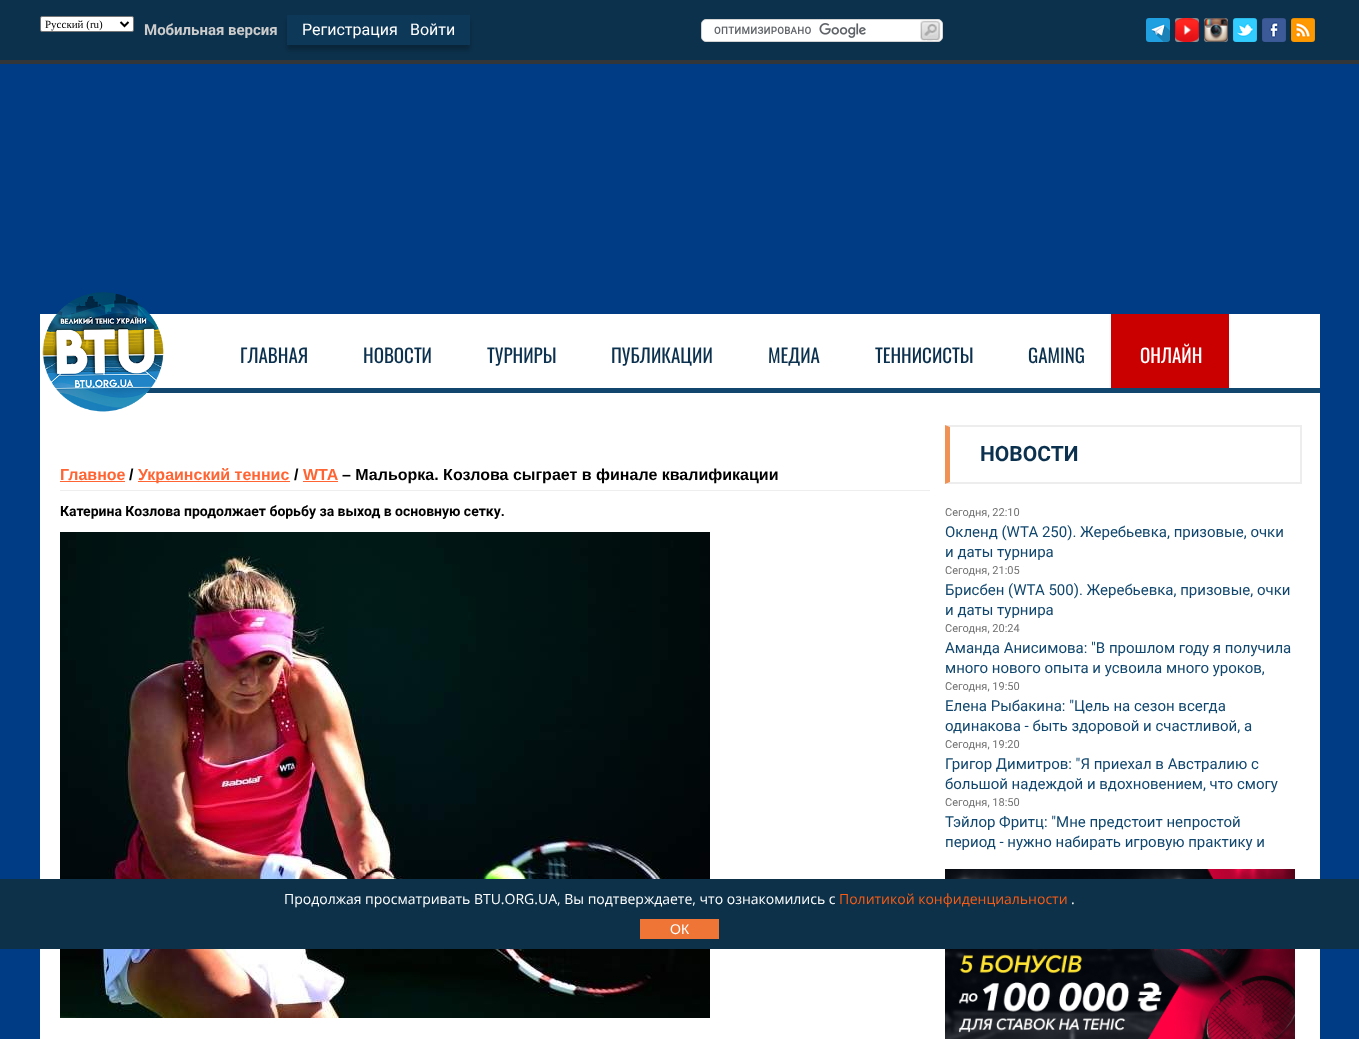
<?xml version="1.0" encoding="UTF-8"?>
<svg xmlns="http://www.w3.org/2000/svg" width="1359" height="1039">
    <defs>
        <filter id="blur1" x="-50%" y="-200%" width="200%" height="500%"><feGaussianBlur stdDeviation="2"/></filter>
    </defs>
    <rect width="100%" height="100%" fill="#003C85"/>
    <rect x="0" y="0" width="1359" height="60" fill="#0C314C"/>
    <rect x="0" y="60" width="1359" height="4" fill="#323639"/>
    <rect x="40.5" y="16.5" width="93" height="15" rx="1.5" fill="#FFFFFF" stroke="#767676"/>
    <path d="M 120.5 22 L 124.5 26 L 128.5 22" fill="none" stroke="#000000" stroke-width="2"/>
    <text x="45" y="28" font-family="Liberation Serif" font-size="11" fill="#000000">Русский (ru)</text>
    <text x="144" y="35" font-family="Roboto" font-size="15" font-weight="700" fill="#CCCCCC">Мобильная версия</text>
    <rect x="287" y="20" width="183" height="30" fill="#000000" fill-opacity="0.25" filter="url(#blur1)"/>
    <rect x="287" y="15" width="183" height="30" fill="#0E3858"/>
    <text x="302" y="35" font-family="Roboto" font-size="16" fill="#FFFFFF">Регистрация</text>
    <text x="410" y="35" font-family="Roboto" font-size="16" fill="#FFFFFF">Войти</text>
    <rect x="701.5" y="19.5" width="241" height="22" rx="4.5" fill="#FFFFFF" stroke="#D3D3D3"/>
    <image x="714" y="23" width="152" height="15" href="img_01.png"/>
    <image x="920" y="20" width="21" height="21" href="img_02.png"/>
    <image x="1146" y="18" width="24" height="24" href="img_03.png"/>
    <image x="1175" y="18" width="24" height="24" href="img_04.png"/>
    <image x="1175" y="18" width="24" height="24" href="img_05.png"/>
    <image x="1204" y="18" width="24" height="24" href="img_04.png"/>
    <image x="1204" y="18" width="24" height="24" href="img_06.png"/>
    <image x="1233" y="18" width="24" height="24" href="img_07.png"/>
    <image x="1262" y="18" width="24" height="24" href="img_08.png"/>
    <image x="1291" y="18" width="24" height="24" href="img_09.png"/>
    <rect x="40" y="314" width="1280" height="725" fill="#FFFFFF"/>
    <rect x="146" y="388" width="1174" height="5" fill="#11476E"/>
    <image x="42" y="292" width="122" height="120" href="img_10.png"/>
    <text x="240" y="363" font-family="Oswald" font-size="19" fill="#0C314E">ГЛАВНАЯ</text>
    <text x="363" y="363" font-family="Oswald" font-size="19" fill="#0C314E">НОВОСТИ</text>
    <text x="487" y="363" font-family="Oswald" font-size="19" fill="#0C314E">ТУРНИРЫ</text>
    <text x="611" y="363" font-family="Oswald" font-size="19" fill="#0C314E">ПУБЛИКАЦИИ</text>
    <text x="768" y="363" font-family="Oswald" font-size="19" fill="#0C314E">МЕДИА</text>
    <text x="875" y="363" font-family="Oswald" font-size="19" fill="#0C314E">ТЕННИСИСТЫ</text>
    <text x="1028" y="363" font-family="Oswald" font-size="19" fill="#0C314E">GAMING</text>
    <rect x="1111" y="314" width="118" height="74" fill="#CA0000"/>
    <text x="1140" y="363" font-family="Oswald" font-size="19" fill="#FFFFFF">ОНЛАЙН</text>
    <rect x="60" y="490" width="870" height="1" fill="#EEEEEE"/>
    <text x="60" y="480" font-family="Liberation Sans" font-size="16" font-weight="700" fill="#FF6432">Главное</text>
    <rect x="60" y="481" width="65" height="1" fill="#FF6432"/>
    <text x="129" y="480" font-family="Liberation Sans" font-size="16" font-weight="700" fill="#000000">/</text>
    <rect x="138" y="481" width="152" height="1" fill="#FF6432"/>
    <text x="138" y="480" font-family="Liberation Sans" font-size="16" font-weight="700" fill="#FF6432">Украинский теннис</text>
    <text x="294" y="480" font-family="Liberation Sans" font-size="16" font-weight="700" fill="#000000">/</text>
    <text x="303" y="480" font-family="Liberation Sans" font-size="16" font-weight="700" fill="#FF6432">WTA</text>
    <rect x="303" y="481" width="35" height="1" fill="#FF6432"/>
    <text x="342" y="480" font-family="Liberation Sans" font-size="16" font-weight="700" fill="#000000">– Мальорка. Козлова сыграет в финале квалификации</text>
    <text x="60" y="516" font-family="Roboto" font-size="14" font-weight="700" fill="#000000">Катерина Козлова продолжает борьбу за выход в основную сетку.</text>
    <image x="60" y="532" width="650" height="486" href="img_11.png"/>
    <path d="M 945 425 H 1302 L 1300 427 H 950 Z" fill="#EDEDED"/>
    <rect x="1300" y="425" width="2" height="59" fill="#EDEDED"/>
    <path d="M 1302 484 H 945 L 950 482 H 1300 Z" fill="#EDEDED"/>
    <path d="M 945 484 V 425 L 950 427 V 482 Z" fill="#F09156"/>
    <text x="980" y="461" font-family="Roboto" font-size="21" font-weight="700" fill="#0C314E">НОВОСТИ</text>
    <text x="945" y="516" font-family="Roboto" font-size="11" fill="#707070">Сегодня, 22:10</text>
    <text font-family="Roboto" font-size="15" fill="#11476E">
        <tspan x="945" y="537">Окленд (WTA 250). Жеребьевка, призовые, очки</tspan>
        <tspan x="945" y="557">и даты турнира</tspan>
    </text>
    <text x="945" y="574" font-family="Roboto" font-size="11" fill="#707070">Сегодня, 21:05</text>
    <text font-family="Roboto" font-size="15" fill="#11476E">
        <tspan x="945" y="595">Брисбен (WTA 500). Жеребьевка, призовые, очки</tspan>
        <tspan x="945" y="615">и даты турнира</tspan>
    </text>
    <text x="945" y="632" font-family="Roboto" font-size="11" fill="#707070">Сегодня, 20:24</text>
    <text font-family="Roboto" font-size="15" fill="#11476E">
        <tspan x="945" y="653">Аманда Анисимова: "В прошлом году я получила</tspan>
        <tspan x="945" y="673">много нового опыта и усвоила много уроков,</tspan>
    </text>
    <text x="945" y="690" font-family="Roboto" font-size="11" fill="#707070">Сегодня, 19:50</text>
    <text font-family="Roboto" font-size="15" fill="#11476E">
        <tspan x="945" y="711">Елена Рыбакина: "Цель на сезон всегда</tspan>
        <tspan x="945" y="731">одинакова - быть здоровой и счастливой, а</tspan>
    </text>
    <text x="945" y="748" font-family="Roboto" font-size="11" fill="#707070">Сегодня, 19:20</text>
    <text font-family="Roboto" font-size="15" fill="#11476E">
        <tspan x="945" y="769">Григор Димитров: "Я приехал в Австралию с</tspan>
        <tspan x="945" y="789">большой надеждой и вдохновением, что смогу</tspan>
    </text>
    <text x="945" y="806" font-family="Roboto" font-size="11" fill="#707070">Сегодня, 18:50</text>
    <text font-family="Roboto" font-size="15" fill="#11476E">
        <tspan x="945" y="827">Тэйлор Фритц: "Мне предстоит непростой</tspan>
        <tspan x="945" y="847">период - нужно набирать игровую практику и</tspan>
    </text>
    <image x="945" y="869" width="350" height="170" href="img_12.png"/>
    <rect x="0" y="879" width="1359" height="70" fill="#0C3149"/>
    <text x="284" y="904" font-family="Open Sans" font-size="14" fill="#FFFFFF">Продолжая просматривать BTU.ORG.UA, Вы подтверждаете, что ознакомились с</text>
    <text x="839" y="904" font-family="Open Sans" font-size="14" fill="#FB5C14">Политикой конфиденциальности</text>
    <text x="1071" y="904" font-family="Open Sans" font-size="14" fill="#FFFFFF">.</text>
    <rect x="640" y="919" width="79" height="20" fill="#EE7536"/>
    <text x="670" y="934" font-family="Liberation Sans" font-size="14" fill="#FFFFFF">ОК</text>
</svg>
